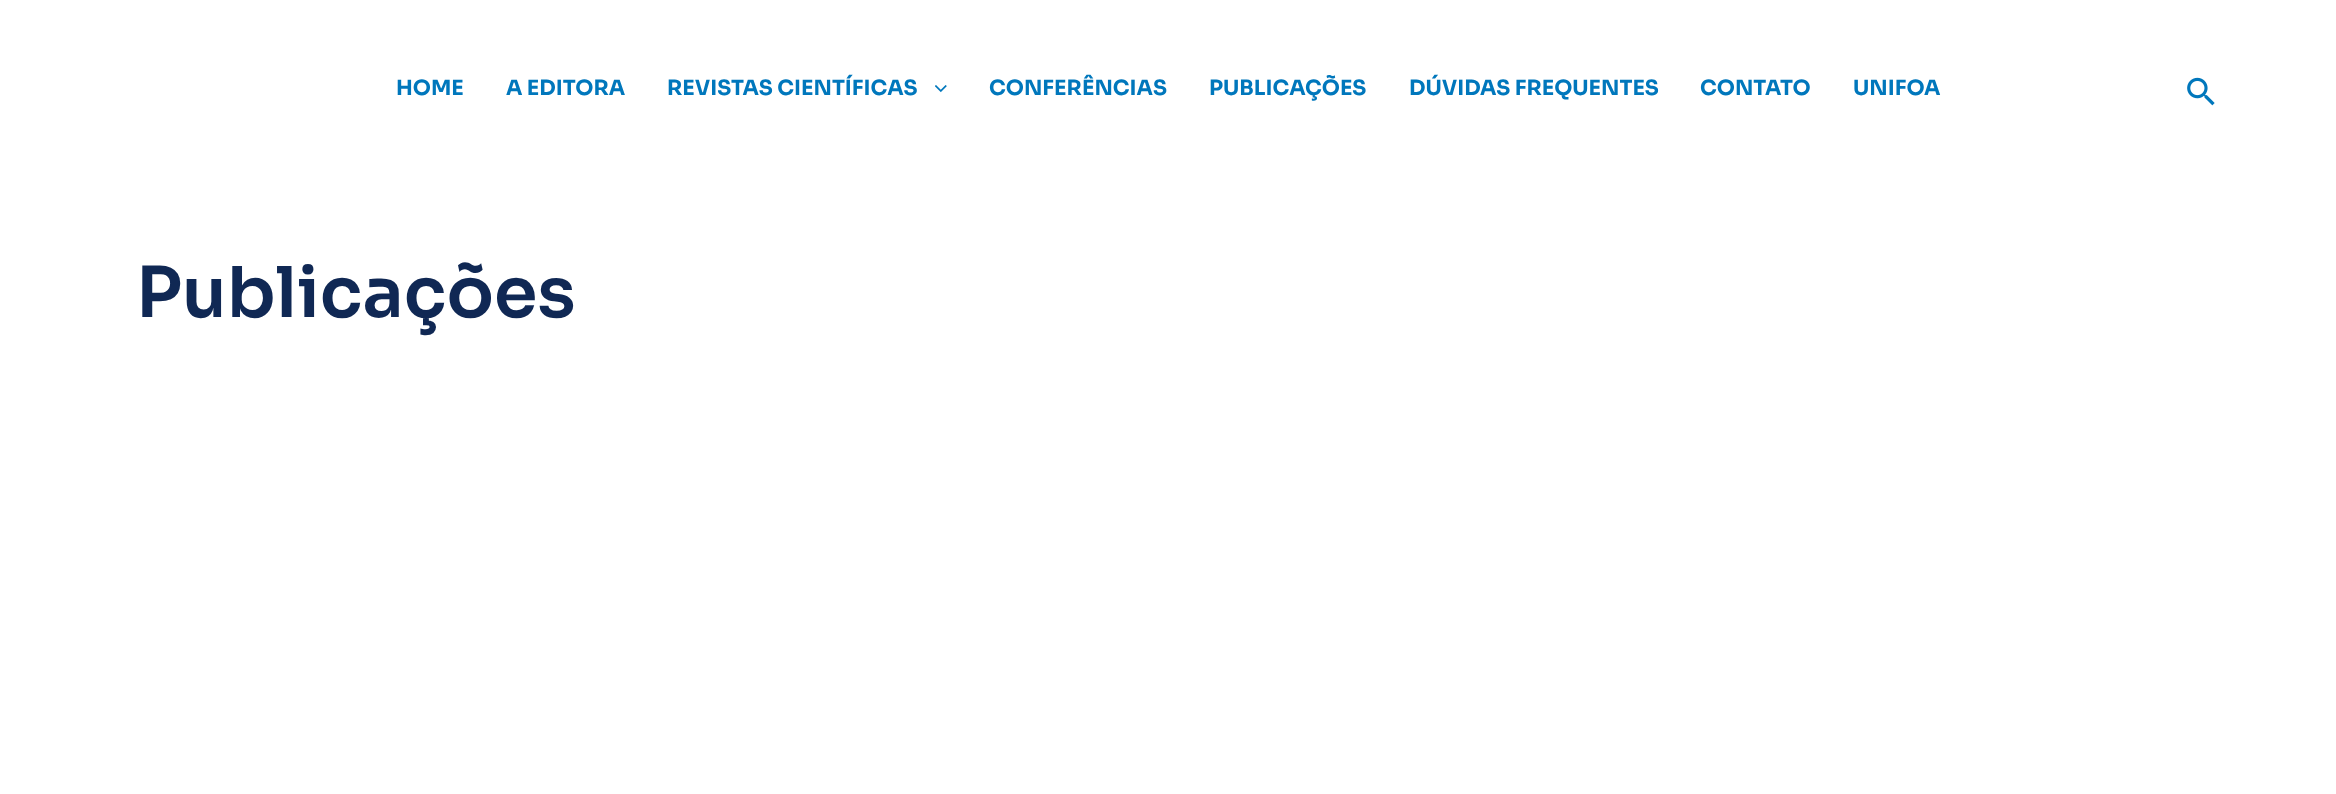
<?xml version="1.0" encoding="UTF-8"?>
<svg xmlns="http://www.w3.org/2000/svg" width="2336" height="794">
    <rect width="100%" height="100%" fill="#FFFFFF"/>
    <text x="396" y="95" font-family="Sora" font-size="21" font-weight="700" fill="#0077BC">HOME</text>
    <text x="506" y="95" font-family="Sora" font-size="21" font-weight="700" fill="#0077BC">A EDITORA</text>
    <text x="667" y="95" font-family="Sora" font-size="21" font-weight="700" fill="#0077BC">REVISTAS CIENTÍFICAS</text>
    <image x="935" y="85" width="12" height="8" href="img_01.png"/>
    <text x="989" y="95" font-family="Sora" font-size="21" font-weight="700" fill="#0077BC">CONFERÊNCIAS</text>
    <text x="1209" y="95" font-family="Sora" font-size="21" font-weight="700" fill="#0077BC">PUBLICAÇÕES</text>
    <text x="1409" y="95" font-family="Sora" font-size="21" font-weight="700" fill="#0077BC">DÚVIDAS FREQUENTES</text>
    <text x="1700" y="95" font-family="Sora" font-size="21" font-weight="700" fill="#0077BC">CONTATO</text>
    <text x="1853" y="95" font-family="Sora" font-size="21" font-weight="700" fill="#0077BC">UNIFOA</text>
    <image x="2187" y="77" width="28" height="29" href="img_02.png"/>
    <text x="136" y="317" font-family="Sora" font-size="70" font-weight="600" fill="#102854">Publicações</text>
</svg>
